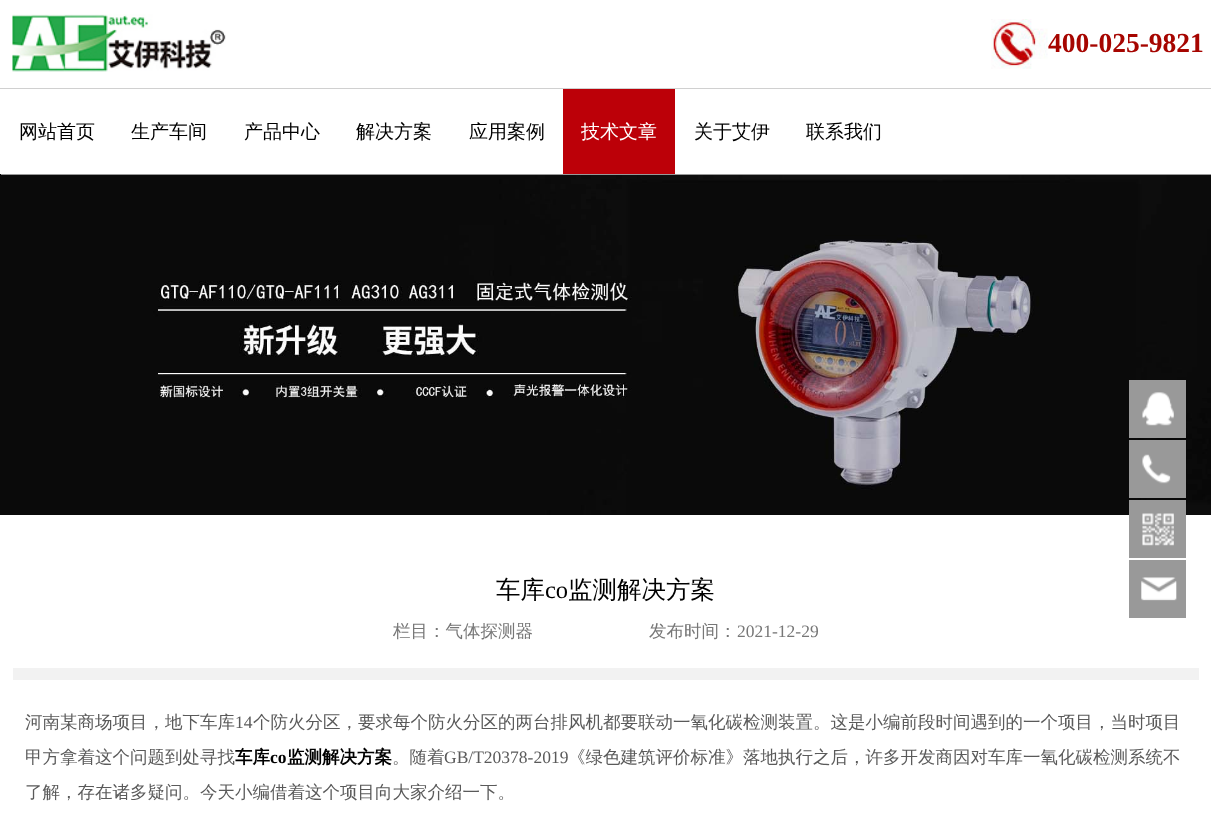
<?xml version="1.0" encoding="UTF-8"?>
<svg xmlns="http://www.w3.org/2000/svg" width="1211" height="838">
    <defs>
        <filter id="blur1" x="-50%" y="-200%" width="200%" height="500%"><feGaussianBlur stdDeviation="0.5"/></filter>
    </defs>
    <rect width="100%" height="100%" fill="#FFFFFF"/>
    <image x="12" y="14" width="214" height="58" href="img_01.png"/>
    <image x="991" y="19" width="57" height="50" href="img_02.png"/>
    <text x="1048" y="52" font-family="Liberation Serif" font-size="27.5" font-weight="700" fill="#A60500">400-025-9821</text>
    <image x="0" y="174" width="1211" height="341" href="img_03.png"/>
    <rect x="1" y="89" width="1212" height="86" fill="#999999" filter="url(#blur1)"/>
    <rect x="0" y="89" width="1211" height="85" fill="#FFFFFF"/>
    <rect x="0" y="88" width="1211" height="1" fill="#D0D0D0"/>
    <text x="19" y="138" font-family="WenQuanYi Zen Hei" font-size="19" font-weight="500" fill="#000000">网站首页</text>
    <text x="131" y="138" font-family="WenQuanYi Zen Hei" font-size="19" font-weight="500" fill="#000000">生产车间</text>
    <text x="244" y="138" font-family="WenQuanYi Zen Hei" font-size="19" font-weight="500" fill="#000000">产品中心</text>
    <text x="356" y="138" font-family="WenQuanYi Zen Hei" font-size="19" font-weight="500" fill="#000000">解决方案</text>
    <text x="469" y="138" font-family="WenQuanYi Zen Hei" font-size="19" font-weight="500" fill="#000000">应用案例</text>
    <rect x="563" y="89" width="112" height="85" fill="#BC0008"/>
    <text x="581" y="138" font-family="WenQuanYi Zen Hei" font-size="19" font-weight="500" fill="#FFFFFF">技术文章</text>
    <text x="694" y="138" font-family="WenQuanYi Zen Hei" font-size="19" font-weight="500" fill="#000000">关于艾伊</text>
    <text x="806" y="138" font-family="WenQuanYi Zen Hei" font-size="19" font-weight="500" fill="#000000">联系我们</text>
    <rect x="1129" y="380" width="57" height="58" fill="#999999"/>
    <image x="1142" y="392" width="32" height="34" href="img_04.png"/>
    <rect x="1129" y="440" width="57" height="58" fill="#999999"/>
    <image x="1142" y="454" width="29" height="30" href="img_05.png"/>
    <rect x="1129" y="500" width="57" height="58" fill="#999999"/>
    <image x="1142" y="513" width="32" height="33" href="img_06.png"/>
    <rect x="1129" y="560" width="57" height="58" fill="#999999"/>
    <image x="1141" y="577" width="36" height="24" href="img_07.png"/>
    <text x="496" y="598" font-family="WenQuanYi Zen Hei" font-size="24.5" font-weight="500" fill="#000000">车库</text>
    <text x="545" y="598" font-family="Liberation Serif" font-size="24.5" fill="#000000">co</text>
    <text x="568" y="598" font-family="WenQuanYi Zen Hei" font-size="24.5" font-weight="500" fill="#000000">监测解决方案</text>
    <text x="393" y="637" font-family="WenQuanYi Zen Hei" font-size="17.5" font-weight="500" fill="#777777">栏目：气体探测器</text>
    <text x="649" y="637" font-family="WenQuanYi Zen Hei" font-size="17.5" font-weight="500" fill="#777777">发布时间：</text>
    <text x="737" y="637" font-family="Liberation Serif" font-size="17.5" fill="#777777">2021-12-29</text>
    <rect x="13" y="668" width="1186" height="12" fill="#F2F2F2"/>
    <text x="25" y="728" font-family="WenQuanYi Zen Hei" font-size="17.5" font-weight="500" fill="#5A5A5A">河南某商场项目，地下车库</text>
    <text x="235" y="728" font-family="Liberation Serif" font-size="17.5" fill="#5A5A5A">14</text>
    <text x="253" y="728" font-family="WenQuanYi Zen Hei" font-size="17.5" font-weight="500" fill="#5A5A5A">个防火分区，要求每个防火分区的两台排风机都要联动一氧化碳检测装置。这是小编前段时间遇到的一个项目，当时项目</text>
    <text x="25" y="763" font-family="WenQuanYi Zen Hei" font-size="17.5" font-weight="500" fill="#5A5A5A">甲方拿着这个问题到处寻找</text>
    <text x="235" y="763" font-family="WenQuanYi Zen Hei" font-size="17.5" font-weight="700" fill="#000000">车库</text>
    <text x="270" y="763" font-family="Liberation Serif" font-size="17.5" font-weight="700" fill="#000000">co</text>
    <text x="287" y="763" font-family="WenQuanYi Zen Hei" font-size="17.5" font-weight="700" fill="#000000">监测解决方案</text>
    <text x="392" y="763" font-family="WenQuanYi Zen Hei" font-size="17.5" font-weight="500" fill="#5A5A5A">。随着</text>
    <text x="444" y="763" font-family="Liberation Serif" font-size="17.5" fill="#5A5A5A">GB/T20378-2019</text>
    <text x="568" y="763" font-family="WenQuanYi Zen Hei" font-size="17.5" font-weight="500" fill="#5A5A5A">《绿色建筑评价标准》落地执行之后，许多开发商因对车库一氧化碳检测系统不</text>
    <text x="25" y="798" font-family="WenQuanYi Zen Hei" font-size="17.5" font-weight="500" fill="#5A5A5A">了解，存在诸多疑问。今天小编借着这个项目向大家介绍一下。</text>
</svg>
